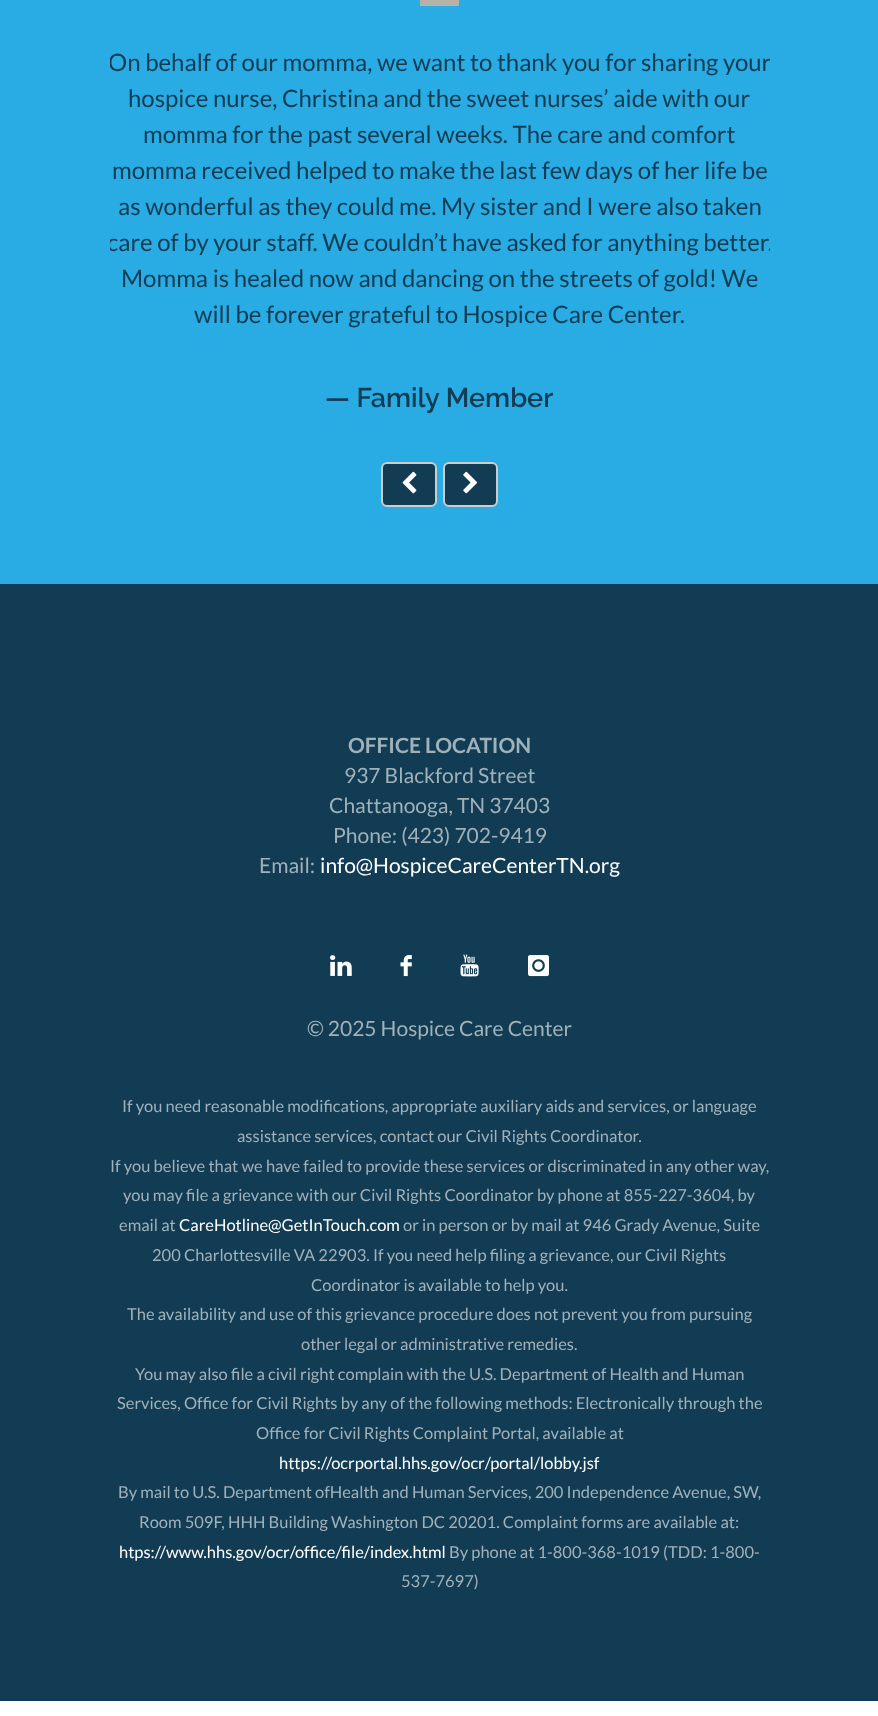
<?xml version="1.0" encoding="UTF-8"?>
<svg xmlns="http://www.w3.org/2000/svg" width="878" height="1716">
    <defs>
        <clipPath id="clip1"><rect x="110" y="0" width="660" height="462"/></clipPath>
    </defs>
    <rect width="100%" height="100%" fill="#FFFFFF"/>
    <rect x="0" y="0" width="878" height="584" fill="#29ABE3"/>
    <rect x="0" y="584" width="878" height="1117" fill="#123C53"/>
    <rect x="420" y="0" width="39" height="6" fill="#B5B2A9"/>
    <g clip-path="url(#clip1)">
        <text x="108" y="71" font-family="Lato" font-size="24" fill="#123C53">On behalf of our momma, we want to thank you for sharing your</text>
    </g>
    <text x="128" y="107" font-family="Lato" font-size="24" fill="#123C53">hospice nurse, Christina and the sweet nurses’ aide with our</text>
    <text x="143" y="143" font-family="Lato" font-size="24" fill="#123C53">momma for the past several weeks. The care and comfort</text>
    <text x="112" y="179" font-family="Lato" font-size="24" fill="#123C53">momma received helped to make the last few days of her life be</text>
    <text x="118" y="215" font-family="Lato" font-size="24" fill="#123C53">as wonderful as they could me. My sister and I were also taken</text>
    <g clip-path="url(#clip1)">
        <text x="107" y="251" font-family="Lato" font-size="24" fill="#123C53">care of by your staff. We couldn’t have asked for anything better.</text>
    </g>
    <text x="121" y="287" font-family="Lato" font-size="24" fill="#123C53">Momma is healed now and dancing on the streets of gold! We</text>
    <text x="194" y="323" font-family="Lato" font-size="24" fill="#123C53">will be forever grateful to Hospice Care Center.</text>
    <text x="325" y="407" font-family="Raleway" font-size="27" font-weight="600" fill="#123C53">— Family Member</text>
    <rect x="382" y="463" width="54" height="43" rx="5" fill="#123C53" stroke="#CCCCCC" stroke-width="2"/>
    <image x="402" y="471" width="15" height="23" href="img_01.png"/>
    <rect x="444" y="463" width="53" height="43" rx="5" fill="#123C53" stroke="#CCCCCC" stroke-width="2"/>
    <image x="463" y="471" width="14" height="23" href="img_02.png"/>
    <text x="348" y="753" font-family="Lato" font-size="21" font-weight="700" fill="#A0B1BA">OFFICE LOCATION</text>
    <text x="344" y="783" font-family="Lato" font-size="21" fill="#A0B1BA">937 Blackford Street</text>
    <text x="329" y="813" font-family="Lato" font-size="21" fill="#A0B1BA">Chattanooga, TN 37403</text>
    <text x="333" y="843" font-family="Lato" font-size="21" fill="#A0B1BA">Phone: (423) 702-9419</text>
    <text x="259" y="873" font-family="Lato" font-size="21" fill="#A0B1BA">Email:</text>
    <text x="320" y="873" font-family="Lato" font-size="21" fill="#FFFFFF">info@HospiceCareCenterTN.org</text>
    <image x="330" y="955" width="22" height="21" href="img_03.png"/>
    <image x="400" y="955" width="12" height="22" href="img_04.png"/>
    <image x="460" y="954" width="19" height="23" href="img_05.png"/>
    <image x="528" y="955" width="21" height="22" href="img_06.png"/>
    <text x="307" y="1036" font-family="Lato" font-size="21" fill="#A0B1BA">© 2025 Hospice Care Center</text>
    <text x="122" y="1112" font-family="Lato" font-size="16.5" fill="#A0B1BA">If you need reasonable modifications, appropriate auxiliary aids and services, or language</text>
    <text x="237" y="1142" font-family="Lato" font-size="16.5" fill="#A0B1BA">assistance services, contact our Civil Rights Coordinator.</text>
    <text x="110" y="1172" font-family="Lato" font-size="16.5" fill="#A0B1BA">If you believe that we have failed to provide these services or discriminated in any other way,</text>
    <text x="123" y="1201" font-family="Lato" font-size="16.5" fill="#A0B1BA">you may file a grievance with our Civil Rights Coordinator by phone at 855-227-3604, by</text>
    <text x="119" y="1231" font-family="Lato" font-size="16.5" fill="#A0B1BA">email at</text>
    <text x="179" y="1231" font-family="Lato" font-size="16.5" fill="#FFFFFF">CareHotline@GetInTouch.com</text>
    <text x="403" y="1231" font-family="Lato" font-size="16.5" fill="#A0B1BA">or in person or by mail at 946 Grady Avenue, Suite</text>
    <text x="152" y="1261" font-family="Lato" font-size="16.5" fill="#A0B1BA">200 Charlottesville VA 22903. If you need help filing a grievance, our Civil Rights</text>
    <text x="311" y="1291" font-family="Lato" font-size="16.5" fill="#A0B1BA">Coordinator is available to help you.</text>
    <text x="127" y="1320" font-family="Lato" font-size="16.5" fill="#A0B1BA">The availability and use of this grievance procedure does not prevent you from pursuing</text>
    <text x="301" y="1350" font-family="Lato" font-size="16.5" fill="#A0B1BA">other legal or administrative remedies.</text>
    <text x="135" y="1380" font-family="Lato" font-size="16.5" fill="#A0B1BA">You may also file a civil right complain with the U.S. Department of Health and Human</text>
    <text x="117" y="1409" font-family="Lato" font-size="16.5" fill="#A0B1BA">Services, Office for Civil Rights by any of the following methods: Electronically through the</text>
    <text x="256" y="1439" font-family="Lato" font-size="16.5" fill="#A0B1BA">Office for Civil Rights Complaint Portal, available at</text>
    <text x="279" y="1469" font-family="Lato" font-size="16.5" fill="#FFFFFF">https://ocrportal.hhs.gov/ocr/portal/lobby.jsf</text>
    <text x="118" y="1498" font-family="Lato" font-size="16.5" fill="#A0B1BA">By mail to U.S. Department ofHealth and Human Services, 200 Independence Avenue, SW,</text>
    <text x="139" y="1528" font-family="Lato" font-size="16.5" fill="#A0B1BA">Room 509F, HHH Building Washington DC 20201. Complaint forms are available at:</text>
    <text x="119" y="1558" font-family="Lato" font-size="16.5" fill="#FFFFFF">htps://www.hhs.gov/ocr/office/file/index.html</text>
    <text x="449" y="1558" font-family="Lato" font-size="16.5" fill="#A0B1BA">By phone at 1-800-368-1019 (TDD: 1-800-</text>
    <text x="401" y="1587" font-family="Lato" font-size="16.5" fill="#A0B1BA">537-7697)</text>
</svg>
